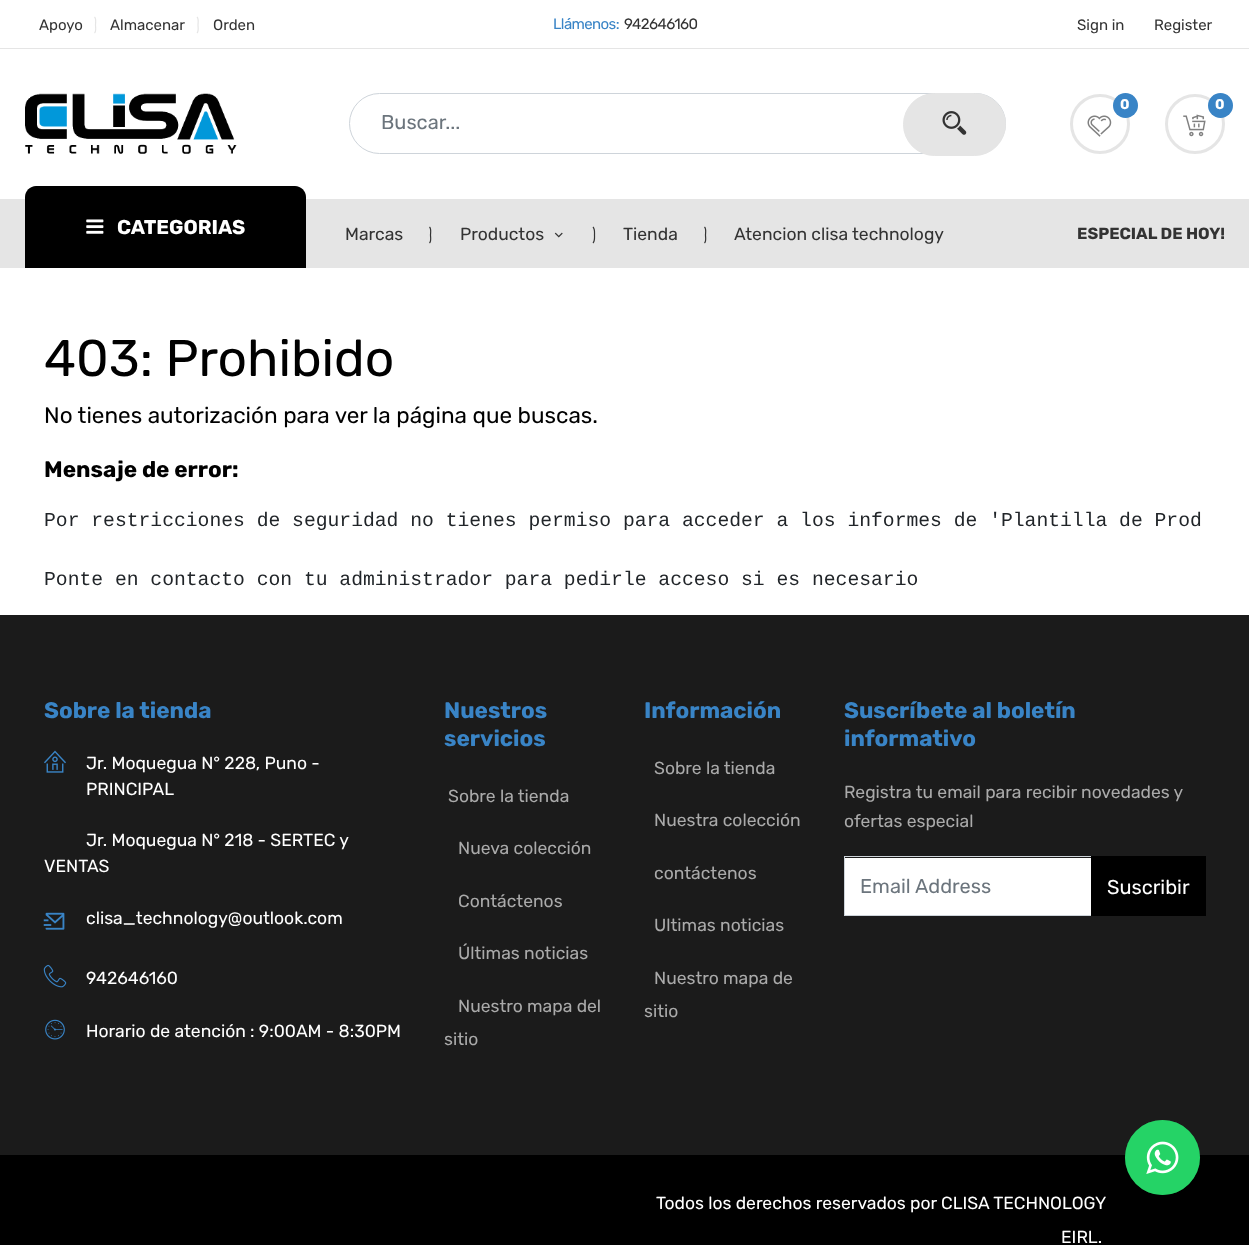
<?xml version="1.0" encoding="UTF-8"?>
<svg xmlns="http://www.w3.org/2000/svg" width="1249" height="1245">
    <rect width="100%" height="100%" fill="#FFFFFF"/>
    <rect x="0" y="48" width="1249" height="1" fill="#E5E5E5"/>
    <text x="39" y="30" font-family="Rubik" font-size="15" fill="#333333">Apoyo</text>
    <path d="M 94.5 17 C 96.5 19 95.5 22.5 95.5 25 C 95.5 27.5 96.5 31 94.5 33" fill="none" stroke="#E5E5E5" stroke-width="1.2"/>
    <text x="110" y="30" font-family="Rubik" font-size="15" fill="#333333">Almacenar</text>
    <path d="M 197 17 C 199 19 198 22.5 198 25 C 198 27.5 199 31 197 33" fill="none" stroke="#E5E5E5" stroke-width="1.2"/>
    <text x="213" y="30" font-family="Rubik" font-size="15" fill="#333333">Orden</text>
    <text x="553" y="29" font-family="Rubik" font-size="15" letter-spacing="-0.6" fill="#3984C6">Llámenos:</text>
    <text x="624" y="29" font-family="Rubik" font-size="15" letter-spacing="-0.6" fill="#333333">942646160</text>
    <text x="1077" y="30" font-family="Rubik" font-size="15" fill="#333333">Sign in</text>
    <text x="1154" y="30" font-family="Rubik" font-size="15" fill="#333333">Register</text>
    <image x="25" y="93" width="212" height="61" href="img_01.png"/>
    <circle cx="1100" cy="124" r="28.5" fill="none" stroke="#E5E5E5" stroke-width="3"/>
    <circle cx="1125.5" cy="105.5" r="12.5" fill="#3984C6"/>
    <text x="1120" y="109" font-family="Rubik" font-size="14" font-weight="700" fill="#FFFFFF">0</text>
    <image x="1087" y="115" width="25" height="22" href="img_02.png"/>
    <circle cx="1195" cy="124" r="28.5" fill="none" stroke="#E5E5E5" stroke-width="3"/>
    <circle cx="1220.5" cy="105.5" r="12.5" fill="#3984C6"/>
    <text x="1215" y="109" font-family="Rubik" font-size="14" font-weight="700" fill="#FFFFFF">0</text>
    <image x="1183" y="114" width="23" height="23" href="img_03.png"/>
    <rect x="349.5" y="93.5" width="656" height="60" rx="30" fill="none" stroke="#CED4DA"/>
    <text x="381" y="129" font-family="Rubik" font-size="20" fill="#6C757D">Buscar...</text>
    <rect x="903.5" y="93.5" width="102" height="62" rx="31" fill="#E5E5E5" stroke="#E5E5E5"/>
    <image x="942" y="111" width="25" height="24" href="img_04.png"/>
    <rect x="0" y="199" width="1249" height="69" fill="#E5E5E5"/>
    <path d="M 36 186 H 295 C 301 186 306 191 306 197 V 268 H 25 V 197 C 25 191 30 186 36 186 Z" fill="#000000"/>
    <image x="86" y="219" width="18" height="15" href="img_05.png"/>
    <text x="117" y="234" font-family="Rubik" font-size="20" font-weight="700" fill="#FFFFFF">CATEGORIAS</text>
    <path d="M 429.5 227 C 431.5 229 430.5 232.5 430.5 235 C 430.5 237.5 431.5 241 429.5 243" fill="none" stroke="#333333" stroke-width="1.2"/>
    <text x="345" y="240" font-family="Rubik" font-size="17.5" fill="#333333">Marcas</text>
    <path d="M 593 227 C 595 229 594.5 232.5 594.5 235 C 594.5 237.5 595 241 593 243" fill="none" stroke="#333333" stroke-width="1.2"/>
    <text x="460" y="240" font-family="Rubik" font-size="17.5" fill="#333333">Productos</text>
    <image x="554" y="232" width="9" height="6" href="img_06.png"/>
    <path d="M 704.5 227 C 706.5 229 705.5 232.5 705.5 235 C 705.5 237.5 706.5 241 704.5 243" fill="none" stroke="#333333" stroke-width="1.2"/>
    <text x="623" y="240" font-family="Rubik" font-size="17.5" fill="#333333">Tienda</text>
    <text x="734" y="240" font-family="Rubik" font-size="17.5" fill="#333333">Atencion clisa technology</text>
    <text x="1077" y="239" font-family="Rubik" font-size="16.25" font-weight="700" fill="#333333">ESPECIAL DE HOY!</text>
    <text x="44" y="376" font-family="Rubik" font-size="51.5" fill="#000000">403: Prohibido</text>
    <text x="44" y="423" font-family="Rubik" font-size="22.5" fill="#000000">No tienes autorización para ver la página que buscas.</text>
    <text x="44" y="477" font-family="Rubik" font-size="22.5" font-weight="700" fill="#000000">Mensaje de error:</text>
    <text x="44" y="526" font-family="Liberation Mono" font-size="19.7" fill="#212529">Por restricciones de seguridad no tienes permiso para acceder a los informes de 'Plantilla de Prod</text>
    <text x="44" y="585" font-family="Liberation Mono" font-size="19.7" fill="#212529">Ponte en contacto con tu administrador para pedirle acceso si es necesario</text>
    <rect x="0" y="615" width="1249" height="540" fill="#1B1B1B"/>
    <text x="44" y="718" font-family="Rubik" font-size="22.5" font-weight="700" fill="#3984C6">Sobre la tienda</text>
    <image x="44" y="750" width="22" height="23" href="img_07.png"/>
    <text font-family="Rubik" font-size="17.5" fill="#FFFFFF">
        <tspan x="86" y="769">Jr. Moquegua N° 228, Puno -</tspan>
        <tspan x="86" y="795">PRINCIPAL</tspan>
    </text>
    <text x="86" y="846" font-family="Rubik" font-size="17.5" fill="#FFFFFF">Jr. Moquegua N° 218 - SERTEC y</text>
    <text x="44" y="872" font-family="Rubik" font-size="17.5" fill="#FFFFFF">VENTAS</text>
    <image x="43" y="912" width="22" height="18" href="img_08.png"/>
    <text x="86" y="924" font-family="Rubik" font-size="17.5" fill="#FFFFFF">clisa_technology@outlook.com</text>
    <image x="43" y="964" width="24" height="24" href="img_09.png"/>
    <text x="86" y="984" font-family="Rubik" font-size="17.5" fill="#FFFFFF">942646160</text>
    <image x="45" y="1019" width="20" height="21" href="img_10.png"/>
    <text x="86" y="1037" font-family="Rubik" font-size="17.5" fill="#FFFFFF">Horario de atención : 9:00AM - 8:30PM</text>
    <text font-family="Rubik" font-size="22.5" font-weight="700" fill="#3984C6">
        <tspan x="444" y="718">Nuestros</tspan>
        <tspan x="444" y="746">servicios</tspan>
    </text>
    <text x="448" y="802" font-family="Rubik" font-size="17.5" fill="#AAAAAA">Sobre la tienda</text>
    <text x="458" y="854" font-family="Rubik" font-size="17.5" fill="#AAAAAA">Nueva colección</text>
    <text x="458" y="907" font-family="Rubik" font-size="17.5" fill="#AAAAAA">Contáctenos</text>
    <text x="458" y="959" font-family="Rubik" font-size="17.5" fill="#AAAAAA">Últimas noticias</text>
    <text x="458" y="1012" font-family="Rubik" font-size="17.5" fill="#AAAAAA">Nuestro mapa del</text>
    <text x="444" y="1045" font-family="Rubik" font-size="17.5" fill="#AAAAAA">sitio</text>
    <text x="644" y="718" font-family="Rubik" font-size="22.5" font-weight="700" fill="#3984C6">Información</text>
    <text x="654" y="774" font-family="Rubik" font-size="17.5" fill="#AAAAAA">Sobre la tienda</text>
    <text x="654" y="826" font-family="Rubik" font-size="17.5" fill="#AAAAAA">Nuestra colección</text>
    <text x="654" y="879" font-family="Rubik" font-size="17.5" fill="#AAAAAA">contáctenos</text>
    <text x="654" y="931" font-family="Rubik" font-size="17.5" fill="#AAAAAA">Ultimas noticias</text>
    <text x="654" y="984" font-family="Rubik" font-size="17.5" fill="#AAAAAA">Nuestro mapa de</text>
    <text x="644" y="1017" font-family="Rubik" font-size="17.5" fill="#AAAAAA">sitio</text>
    <text font-family="Rubik" font-size="22.5" font-weight="700" fill="#3984C6">
        <tspan x="844" y="718">Suscríbete al boletín</tspan>
        <tspan x="844" y="746">informativo</tspan>
    </text>
    <text font-family="Rubik" font-size="17.5" fill="#AAAAAA">
        <tspan x="844" y="798">Registra tu email para recibir novedades y</tspan>
        <tspan x="844" y="827">ofertas especial</tspan>
    </text>
    <rect x="845" y="858" width="246" height="57" fill="#FFFFFF"/>
    <rect x="844.5" y="856.5" width="248" height="59" fill="none" stroke="#CED4DA"/>
    <text x="860" y="893" font-family="Rubik" font-size="20" fill="#6C757D">Email Address</text>
    <rect x="1091" y="856" width="115" height="60" fill="#000000"/>
    <text x="1107" y="894" font-family="Rubik" font-size="20" fill="#FFFFFF">Suscribir</text>
    <rect x="0" y="1155" width="1249" height="90" fill="#000000"/>
    <text x="656" y="1209" font-family="Rubik" font-size="17.5" fill="#FFFFFF">Todos los derechos reservados por CLISA TECHNOLOGY</text>
    <text x="1061" y="1243" font-family="Rubik" font-size="17.5" fill="#FFFFFF">EIRL.</text>
    <circle cx="1162.5" cy="1157.5" r="37.5" fill="#25D366"/>
    <circle cx="1162.5" cy="1157.5" r="37.5" fill="#25D366" fill-opacity="0.5"/>
    <image x="1146" y="1141" width="33" height="33" href="img_11.png"/>
</svg>
